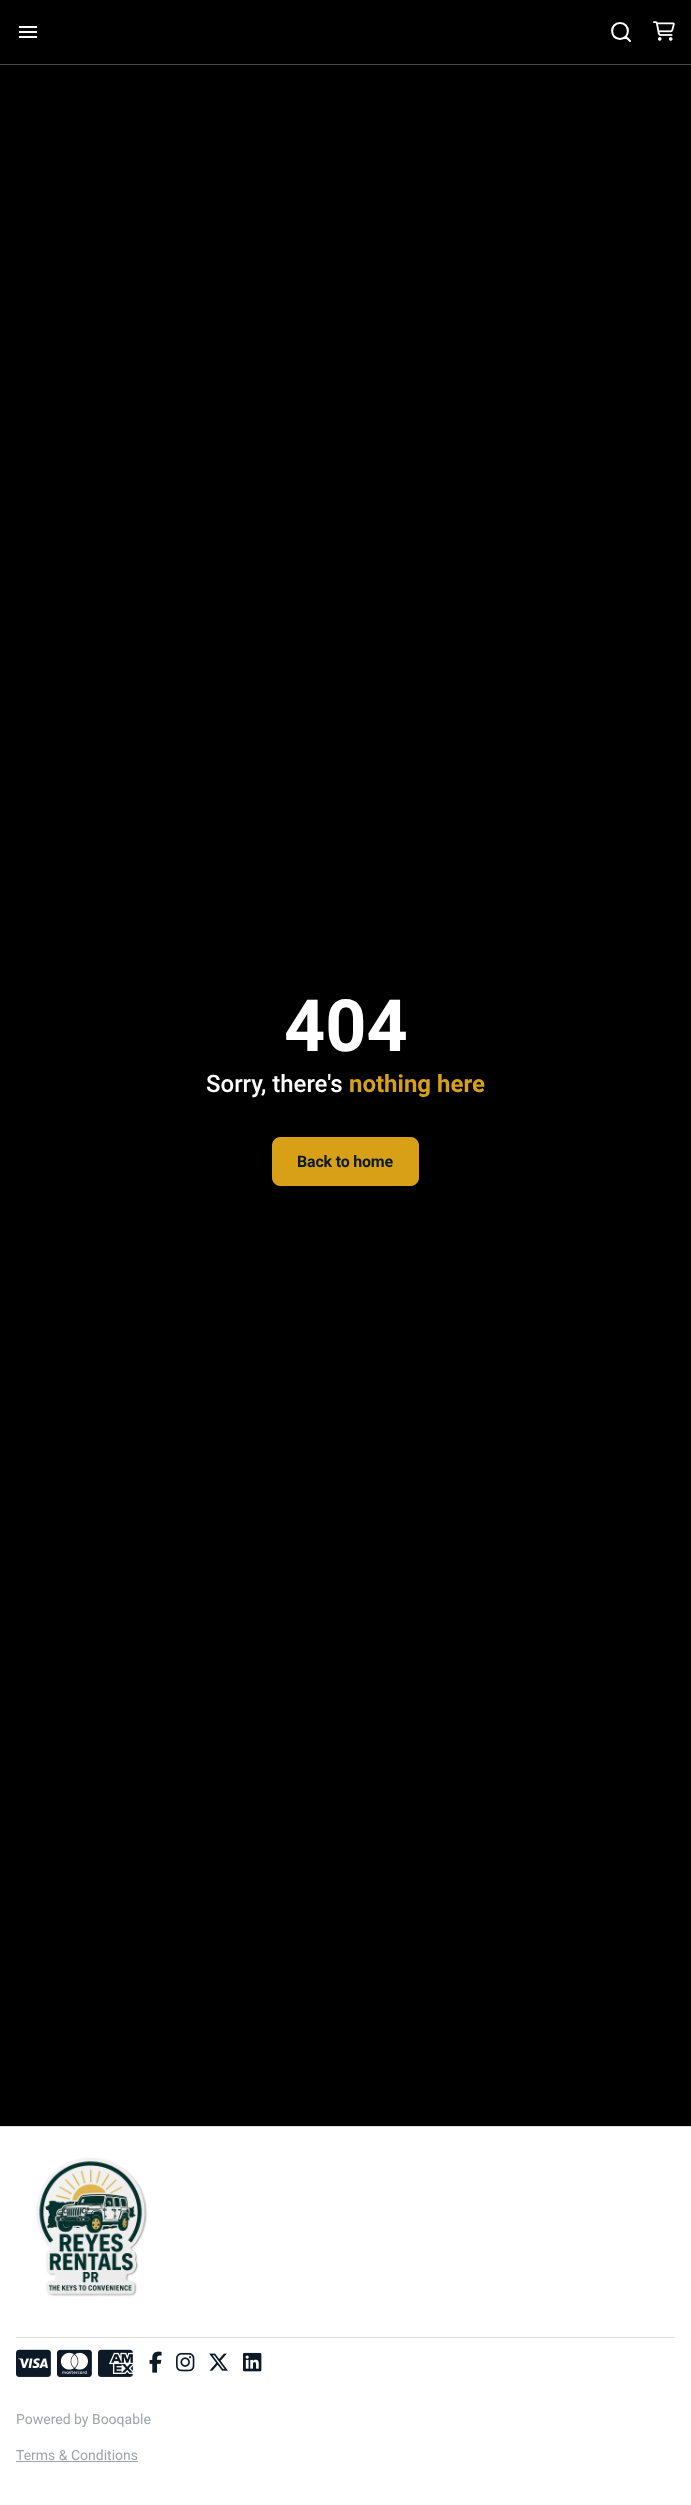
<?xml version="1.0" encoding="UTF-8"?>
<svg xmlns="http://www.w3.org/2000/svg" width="691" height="2505">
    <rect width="100%" height="100%" fill="#FFFFFF"/>
    <rect x="0" y="0" width="691" height="64" fill="#000000"/>
    <rect x="0" y="64" width="691" height="1" fill="#474747"/>
    <rect x="19" y="26" width="18" height="2" fill="#FFFFFF"/>
    <rect x="19" y="31" width="18" height="2" fill="#FFFFFF"/>
    <rect x="19" y="36" width="18" height="2" fill="#FFFFFF"/>
    <path d="M 620 39 C 630.5 39 630.5 23 620 23 C 609.5 23 609.5 39 620 39 Z M 630 41 L 625.5 36.5" fill="none" stroke="#FFFFFF" stroke-width="2" stroke-linecap="round" stroke-linejoin="round"/>
    <image x="653" y="21" width="22" height="20" href="img_01.png"/>
    <rect x="0" y="65" width="691" height="2061" fill="#000000"/>
    <text x="284" y="1051" font-family="Roboto" font-size="72" font-weight="700" fill="#FFFFFF">404</text>
    <text x="206" y="1092" font-family="Roboto" font-size="24" font-weight="500" fill="#FFFFFF">Sorry, there's</text>
    <text x="349" y="1092" font-family="Roboto" font-size="24" font-weight="700" fill="#D8A016">nothing here</text>
    <rect x="272.5" y="1137.5" width="146" height="48" rx="7.5" fill="#D8A016" stroke="#D8A016"/>
    <text x="297" y="1167" font-family="Roboto" font-size="16" font-weight="700" letter-spacing="-0.2" fill="#0B1A26">Back to home</text>
    <rect x="0" y="2126" width="691" height="1" fill="#DADDDE"/>
    <image x="36" y="2157" width="112" height="140" href="img_02.png"/>
    <rect x="16" y="2337" width="659" height="1" fill="#DADDDE"/>
    <image x="16" y="2349" width="35" height="28" href="img_03.png"/>
    <image x="57" y="2349" width="35" height="28" href="img_04.png"/>
    <image x="98" y="2349" width="35" height="28" href="img_05.png"/>
    <image x="149" y="2351" width="13" height="22" href="img_06.png"/>
    <image x="176" y="2352" width="19" height="20" href="img_07.png"/>
    <image x="209" y="2353" width="19" height="18" href="img_08.png"/>
    <image x="243" y="2352" width="19" height="20" href="img_09.png"/>
    <text x="16" y="2424" font-family="Roboto" font-size="14" fill="#9DA3A8">Powered by Booqable</text>
    <text x="16" y="2460" font-family="Roboto" font-size="14" fill="#9DA3A8">Terms &amp; Conditions</text>
    <rect x="16" y="2461" width="122" height="1" fill="#9DA3A8"/>
</svg>
